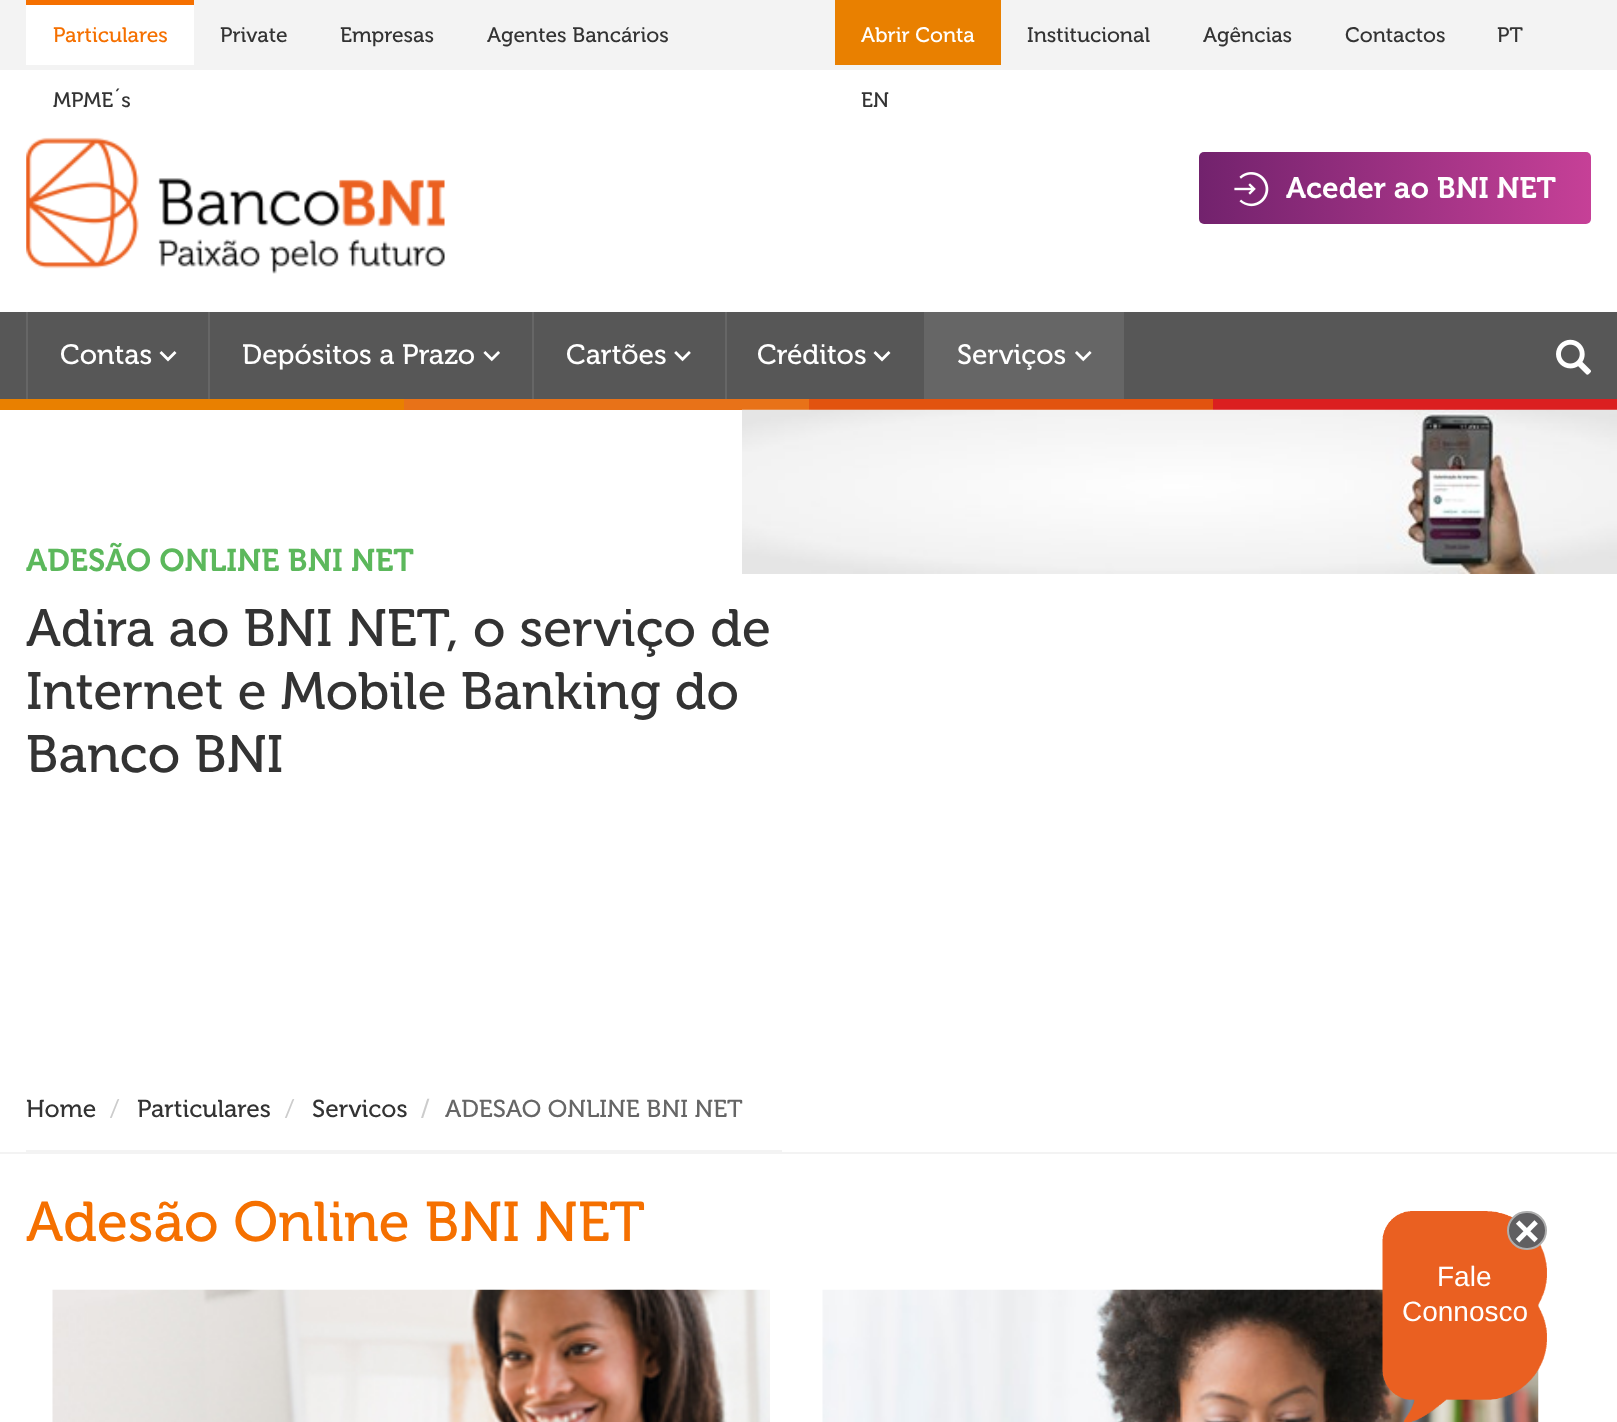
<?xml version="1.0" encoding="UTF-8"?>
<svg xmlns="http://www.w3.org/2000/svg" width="1617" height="1422">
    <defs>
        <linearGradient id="g1" gradientUnits="userSpaceOnUse" x1="1199" y1="188" x2="1591" y2="188"><stop offset="0" stop-color="#72226D"/><stop offset="1" stop-color="#C64097"/></linearGradient>
    </defs>
    <rect width="100%" height="100%" fill="#FFFFFF"/>
    <rect x="0" y="0" width="1617" height="70" fill="#F3F3F3"/>
    <rect x="26" y="5" width="168" height="60" fill="#FFFFFF"/>
    <rect x="26" y="0" width="168" height="5" fill="#F57000"/>
    <text x="53" y="42" font-family="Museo" font-size="21" fill="#F57000">Particulares</text>
    <text x="220" y="42" font-family="Museo" font-size="21" fill="#333333">Private</text>
    <text x="340" y="42" font-family="Museo" font-size="21" fill="#333333">Empresas</text>
    <text x="487" y="42" font-family="Museo" font-size="21" fill="#333333">Agentes Bancários</text>
    <text x="53" y="107" font-family="Museo" font-size="21" fill="#333333">MPME´s</text>
    <rect x="835" y="0" width="166" height="65" fill="#E98000"/>
    <text x="861" y="42" font-family="Museo" font-size="21" fill="#FFFFFF">Abrir Conta</text>
    <text x="1027" y="42" font-family="Museo" font-size="21" fill="#333333">Institucional</text>
    <text x="1203" y="42" font-family="Museo" font-size="21" fill="#333333">Agências</text>
    <text x="1345" y="42" font-family="Museo" font-size="21" fill="#333333">Contactos</text>
    <text x="1497" y="42" font-family="Museo" font-size="21" fill="#333333">PT</text>
    <text x="861" y="107" font-family="Museo" font-size="21" fill="#333333">EN</text>
    <image x="26" y="137" width="419" height="137" href="img_01.png"/>
    <rect x="1199" y="152" width="392" height="72" rx="5" fill="url(#g1)"/>
    <image x="1234" y="172" width="35" height="35" href="img_02.png"/>
    <text x="1286" y="198" font-family="Museo" font-size="29.75" font-weight="600" fill="#FFFFFF">Aceder ao BNI NET</text>
    <rect x="0" y="312" width="1617" height="87" fill="#575757"/>
    <rect x="26" y="312" width="2" height="87" fill="#666666"/>
    <text x="60" y="364" font-family="Museo" font-size="28" fill="#FFFFFF">Contas</text>
    <path d="M 174.5 351 L 168 357.5 L 161.5 351 L 159.5 353 L 168 361.5 L 176.5 353 Z" fill="#FFFFFF"/>
    <rect x="208" y="312" width="2" height="87" fill="#666666"/>
    <text x="242" y="364" font-family="Museo" font-size="28" fill="#FFFFFF">Depósitos a Prazo</text>
    <image x="483" y="351" width="17" height="11" href="img_03.png"/>
    <rect x="532" y="312" width="2" height="87" fill="#666666"/>
    <text x="566" y="364" font-family="Museo" font-size="28" fill="#FFFFFF">Cartões</text>
    <image x="674" y="351" width="17" height="11" href="img_04.png"/>
    <rect x="725" y="312" width="2" height="87" fill="#666666"/>
    <text x="757" y="364" font-family="Museo" font-size="28" fill="#FFFFFF">Créditos</text>
    <path d="M 888.5 351 L 882 357.5 L 875.5 351 L 873.5 353 L 882 361.5 L 890.5 353 Z" fill="#FFFFFF"/>
    <rect x="924" y="312" width="200" height="87" fill="#666666"/>
    <text x="957" y="364" font-family="Museo" font-size="28" fill="#FFFFFF">Serviços</text>
    <image x="1075" y="351" width="17" height="11" href="img_05.png"/>
    <image x="1556" y="339" width="35" height="36" href="img_06.png"/>
    <rect x="0" y="399" width="404" height="11" fill="#E98000"/>
    <rect x="404" y="399" width="405" height="11" fill="#E87218"/>
    <rect x="809" y="399" width="404" height="11" fill="#E2530F"/>
    <rect x="1213" y="399" width="404" height="11" fill="#DB1F20"/>
    <image x="742" y="409" width="875" height="165" href="img_07.png"/>
    <text x="26" y="571" font-family="Museo" font-size="31.5" font-weight="600" fill="#5CB85C">ADESÃO ONLINE BNI NET</text>
    <text font-family="Museo" font-size="52.5" fill="#333333">
        <tspan x="26" y="646">Adira ao BNI NET, o serviço de</tspan>
        <tspan x="26" y="709">Internet e Mobile Banking do</tspan>
        <tspan x="26" y="772">Banco BNI</tspan>
    </text>
    <rect x="0" y="1152" width="1617" height="2" fill="#F3F3F3"/>
    <rect x="26" y="1150" width="756" height="2" fill="#F3F3F3"/>
    <text x="26" y="1117" font-family="Museo" font-size="24.5" fill="#333333">Home</text>
    <text x="110" y="1117" font-family="Lato" font-size="24.5" fill="#CCCCCC">/</text>
    <text x="137" y="1117" font-family="Museo" font-size="24.5" fill="#333333">Particulares</text>
    <text x="285" y="1117" font-family="Lato" font-size="24.5" fill="#CCCCCC">/</text>
    <text x="312" y="1117" font-family="Museo" font-size="24.5" fill="#333333">Servicos</text>
    <text x="421" y="1117" font-family="Museo" font-size="24.5" fill="#CCCCCC">/</text>
    <text x="445" y="1117" font-family="Museo" font-size="24.5" fill="#666666">ADESAO ONLINE BNI NET</text>
    <text x="26" y="1241" font-family="Museo" font-size="56" fill="#F57000">Adesão Online BNI NET</text>
    <image x="52" y="1289" width="718" height="133" href="img_08.png"/>
    <image x="822" y="1289" width="717" height="133" href="img_09.png"/>
    <image x="1382" y="1211" width="165" height="211" href="img_10.png"/>
    <rect x="1508" y="1212" width="38" height="37" rx="18.5" fill="#605F61" stroke="#AEAEAE" stroke-width="2"/>
    <text x="1514" y="1246" font-family="Liberation Sans" font-size="44" font-weight="700" fill="#FFFFFF">×</text>
    <text x="1437" y="1286" font-family="Liberation Sans" font-size="28" fill="#FFFFFF">Fale</text>
    <text x="1402" y="1321" font-family="Liberation Sans" font-size="28" fill="#FFFFFF">Connosco</text>
</svg>
